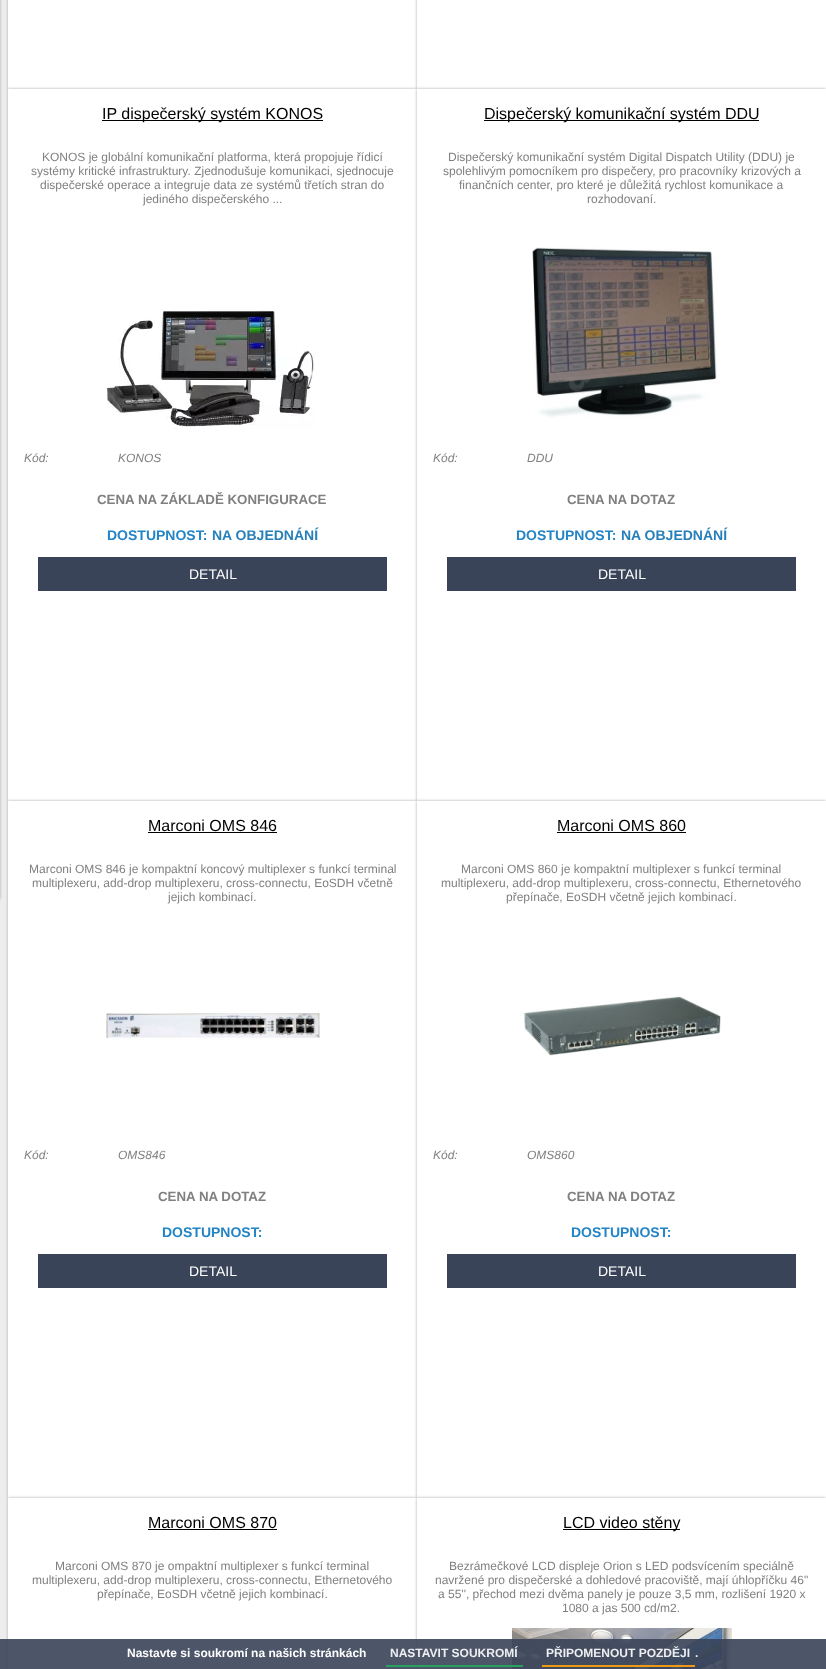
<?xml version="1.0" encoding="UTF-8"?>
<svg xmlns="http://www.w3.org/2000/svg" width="826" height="1669">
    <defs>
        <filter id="blur1" x="-50%" y="-200%" width="200%" height="500%"><feGaussianBlur stdDeviation="1.5"/></filter>
    </defs>
    <rect width="100%" height="100%" fill="#EDEDED"/>
    <rect x="-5" y="-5" width="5" height="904" fill="#A8A8A8" filter="url(#blur1)"/>
    <rect x="8" y="-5" width="409" height="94" fill="#A8A8A8" filter="url(#blur1)"/>
    <rect x="10.5" y="-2.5" width="404" height="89" fill="none" stroke="#FFFFFF" stroke-width="5"/>
    <rect x="13" y="0" width="399" height="84" fill="#FFFFFF"/>
    <rect x="417" y="-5" width="409" height="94" fill="#A8A8A8" filter="url(#blur1)"/>
    <rect x="419.5" y="-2.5" width="404" height="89" fill="none" stroke="#FFFFFF" stroke-width="5"/>
    <rect x="422" y="0" width="399" height="84" fill="#FFFFFF"/>
    <rect x="8" y="89" width="409" height="712" fill="#A8A8A8" filter="url(#blur1)"/>
    <rect x="10.5" y="91.5" width="404" height="707" fill="none" stroke="#FFFFFF" stroke-width="5"/>
    <rect x="13" y="94" width="399" height="702" fill="#FFFFFF"/>
    <rect x="102" y="120" width="221" height="1" fill="#000000"/>
    <text x="102" y="119" font-family="Liberation Sans" font-size="16" fill="#000000">IP dispečerský systém KONOS</text>
    <text x="42" y="161" font-family="Liberation Sans" font-size="12" fill="#808080">KONOS je globální komunikační platforma, která propojuje řídicí</text>
    <text x="31" y="175" font-family="Liberation Sans" font-size="12" fill="#808080">systémy kritické infrastruktury. Zjednodušuje komunikaci, sjednocuje</text>
    <text x="40" y="189" font-family="Liberation Sans" font-size="12" fill="#808080">dispečerské operace a integruje data ze systémů třetích stran do</text>
    <text x="143" y="203" font-family="Liberation Sans" font-size="12" fill="#808080">jediného dispečerského ...</text>
    <image x="107" y="309" width="208" height="120" href="img_01.png"/>
    <text x="24" y="462" font-family="Liberation Sans" font-size="12" font-style="italic" fill="#808080">Kód:</text>
    <text x="118" y="462" font-family="Liberation Sans" font-size="12" font-style="italic" fill="#808080">KONOS</text>
    <text x="97" y="504" font-family="Liberation Sans" font-size="13.3" font-weight="700" fill="#808080">CENA NA ZÁKLADĚ KONFIGURACE</text>
    <text x="107" y="540" font-family="Liberation Sans" font-size="14" font-weight="700" fill="#2485C6">DOSTUPNOST:</text>
    <text x="212" y="540" font-family="Liberation Sans" font-size="14" font-weight="700" fill="#277FB9">NA OBJEDNÁNÍ</text>
    <rect x="38" y="557" width="349" height="34" fill="#3A4459"/>
    <text x="189" y="579" font-family="Liberation Sans" font-size="14" fill="#FFFFFF">DETAIL</text>
    <rect x="417" y="89" width="409" height="712" fill="#A8A8A8" filter="url(#blur1)"/>
    <rect x="419.5" y="91.5" width="404" height="707" fill="none" stroke="#FFFFFF" stroke-width="5"/>
    <rect x="422" y="94" width="399" height="702" fill="#FFFFFF"/>
    <rect x="484" y="120" width="275" height="1" fill="#000000"/>
    <text x="484" y="119" font-family="Liberation Sans" font-size="16" fill="#000000">Dispečerský komunikační systém DDU</text>
    <text x="448" y="161" font-family="Liberation Sans" font-size="12" fill="#808080">Dispečerský komunikační systém Digital Dispatch Utility (DDU) je</text>
    <text x="443" y="175" font-family="Liberation Sans" font-size="12" fill="#808080">spolehlivým pomocníkem pro dispečery, pro pracovníky krizových a</text>
    <text x="459" y="189" font-family="Liberation Sans" font-size="12" fill="#808080">finančních center, pro které je důležitá rychlost komunikace a</text>
    <text x="587" y="203" font-family="Liberation Sans" font-size="12" fill="#808080">rozhodovaní.</text>
    <image x="532" y="247" width="186" height="171" href="img_02.png"/>
    <text x="433" y="462" font-family="Liberation Sans" font-size="12" font-style="italic" fill="#808080">Kód:</text>
    <text x="527" y="462" font-family="Liberation Sans" font-size="12" font-style="italic" fill="#808080">DDU</text>
    <text x="567" y="504" font-family="Liberation Sans" font-size="13.3" font-weight="700" fill="#808080">CENA NA DOTAZ</text>
    <text x="516" y="540" font-family="Liberation Sans" font-size="14" font-weight="700" fill="#2485C6">DOSTUPNOST:</text>
    <text x="621" y="540" font-family="Liberation Sans" font-size="14" font-weight="700" fill="#277FB9">NA OBJEDNÁNÍ</text>
    <rect x="447" y="557" width="349" height="34" fill="#3A4459"/>
    <text x="598" y="579" font-family="Liberation Sans" font-size="14" fill="#FFFFFF">DETAIL</text>
    <rect x="8" y="801" width="409" height="697" fill="#A8A8A8" filter="url(#blur1)"/>
    <rect x="10.5" y="803.5" width="404" height="692" fill="none" stroke="#FFFFFF" stroke-width="5"/>
    <rect x="13" y="806" width="399" height="687" fill="#FFFFFF"/>
    <text x="148" y="831" font-family="Liberation Sans" font-size="16" fill="#000000">Marconi OMS 846</text>
    <rect x="148" y="832" width="129" height="1" fill="#000000"/>
    <text x="29" y="873" font-family="Liberation Sans" font-size="12" fill="#808080">Marconi OMS 846 je kompaktní koncový multiplexer s funkcí terminal</text>
    <text x="32" y="887" font-family="Liberation Sans" font-size="12" fill="#808080">multiplexeru, add-drop multiplexeru, cross-connectu, EoSDH včetně</text>
    <text x="168" y="901" font-family="Liberation Sans" font-size="12" fill="#808080">jejich kombinací.</text>
    <image x="106" y="1012" width="215" height="32" href="img_03.png"/>
    <text x="24" y="1159" font-family="Liberation Sans" font-size="12" font-style="italic" fill="#808080">Kód:</text>
    <text x="118" y="1159" font-family="Liberation Sans" font-size="12" font-style="italic" fill="#808080">OMS846</text>
    <text x="158" y="1201" font-family="Liberation Sans" font-size="13.3" font-weight="700" fill="#808080">CENA NA DOTAZ</text>
    <text x="162" y="1237" font-family="Liberation Sans" font-size="14" font-weight="700" fill="#2485C6">DOSTUPNOST:</text>
    <rect x="38" y="1254" width="349" height="34" fill="#3A4459"/>
    <text x="189" y="1276" font-family="Liberation Sans" font-size="14" fill="#FFFFFF">DETAIL</text>
    <rect x="417" y="801" width="409" height="697" fill="#A8A8A8" filter="url(#blur1)"/>
    <rect x="419.5" y="803.5" width="404" height="692" fill="none" stroke="#FFFFFF" stroke-width="5"/>
    <rect x="422" y="806" width="399" height="687" fill="#FFFFFF"/>
    <text x="557" y="831" font-family="Liberation Sans" font-size="16" fill="#000000">Marconi OMS 860</text>
    <rect x="557" y="832" width="129" height="1" fill="#000000"/>
    <text x="461" y="873" font-family="Liberation Sans" font-size="12" fill="#808080">Marconi OMS 860 je kompaktní multiplexer s funkcí terminal</text>
    <text x="441" y="887" font-family="Liberation Sans" font-size="12" fill="#808080">multiplexeru, add-drop multiplexeru, cross-connectu, Ethernetového</text>
    <text x="506" y="901" font-family="Liberation Sans" font-size="12" fill="#808080">přepínače, EoSDH včetně jejich kombinací.</text>
    <image x="524" y="996" width="197" height="60" href="img_04.png"/>
    <text x="433" y="1159" font-family="Liberation Sans" font-size="12" font-style="italic" fill="#808080">Kód:</text>
    <text x="527" y="1159" font-family="Liberation Sans" font-size="12" font-style="italic" fill="#808080">OMS860</text>
    <text x="567" y="1201" font-family="Liberation Sans" font-size="13.3" font-weight="700" fill="#808080">CENA NA DOTAZ</text>
    <text x="571" y="1237" font-family="Liberation Sans" font-size="14" font-weight="700" fill="#2485C6">DOSTUPNOST:</text>
    <rect x="447" y="1254" width="349" height="34" fill="#3A4459"/>
    <text x="598" y="1276" font-family="Liberation Sans" font-size="14" fill="#FFFFFF">DETAIL</text>
    <rect x="8" y="1498" width="409" height="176" fill="#A8A8A8" filter="url(#blur1)"/>
    <rect x="10.5" y="1500.5" width="404" height="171" fill="none" stroke="#FFFFFF" stroke-width="5"/>
    <rect x="13" y="1503" width="399" height="166" fill="#FFFFFF"/>
    <text x="148" y="1528" font-family="Liberation Sans" font-size="16" fill="#000000">Marconi OMS 870</text>
    <rect x="148" y="1529" width="129" height="1" fill="#000000"/>
    <text x="55" y="1570" font-family="Liberation Sans" font-size="12" fill="#808080">Marconi OMS 870 je ompaktní multiplexer s funkcí terminal</text>
    <text x="32" y="1584" font-family="Liberation Sans" font-size="12" fill="#808080">multiplexeru, add-drop multiplexeru, cross-connectu, Ethernetového</text>
    <text x="97" y="1598" font-family="Liberation Sans" font-size="12" fill="#808080">přepínače, EoSDH včetně jejich kombinací.</text>
    <rect x="417" y="1498" width="409" height="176" fill="#A8A8A8" filter="url(#blur1)"/>
    <rect x="419.5" y="1500.5" width="404" height="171" fill="none" stroke="#FFFFFF" stroke-width="5"/>
    <rect x="422" y="1503" width="399" height="166" fill="#FFFFFF"/>
    <rect x="563" y="1529" width="117" height="1" fill="#000000"/>
    <text x="563" y="1528" font-family="Liberation Sans" font-size="16" fill="#000000">LCD video stěny</text>
    <text x="449" y="1570" font-family="Liberation Sans" font-size="12" fill="#808080">Bezrámečkové LCD displeje Orion s LED podsvícením speciálně</text>
    <text x="435" y="1584" font-family="Liberation Sans" font-size="12" fill="#808080">navržené pro dispečerské a dohledové pracoviště, mají úhlopříčku 46"</text>
    <text x="438" y="1598" font-family="Liberation Sans" font-size="12" fill="#808080">a 55'', přechod mezi dvěma panely je pouze 3,5 mm, rozlišení 1920 x</text>
    <text x="562" y="1612" font-family="Liberation Sans" font-size="12" fill="#808080">1080 a jas 500 cd/m2.</text>
    <image x="512" y="1628" width="220" height="41" href="img_05.png"/>
    <rect x="0" y="1639" width="826" height="30" fill="#3A4459" fill-opacity="0.9"/>
    <text x="127" y="1657" font-family="Liberation Sans" font-size="12" font-weight="700" fill="#FFFFFF">Nastavte si soukromí na našich stránkách</text>
    <rect x="386" y="1665" width="137" height="2" fill="#26AA5F" fill-opacity="0.9"/>
    <text x="390" y="1657" font-family="Liberation Sans" font-size="12" font-weight="700" fill="#EDEEF0">NASTAVIT SOUKROMÍ</text>
    <rect x="542" y="1665" width="153" height="2" fill="#FFA10A" fill-opacity="0.9"/>
    <text x="546" y="1657" font-family="Liberation Sans" font-size="12" font-weight="700" fill="#EDEEF0">PŘIPOMENOUT POZDĚJI</text>
    <text x="695" y="1657" font-family="Liberation Sans" font-size="12" font-weight="700" fill="#EDEEF0">.</text>
</svg>
